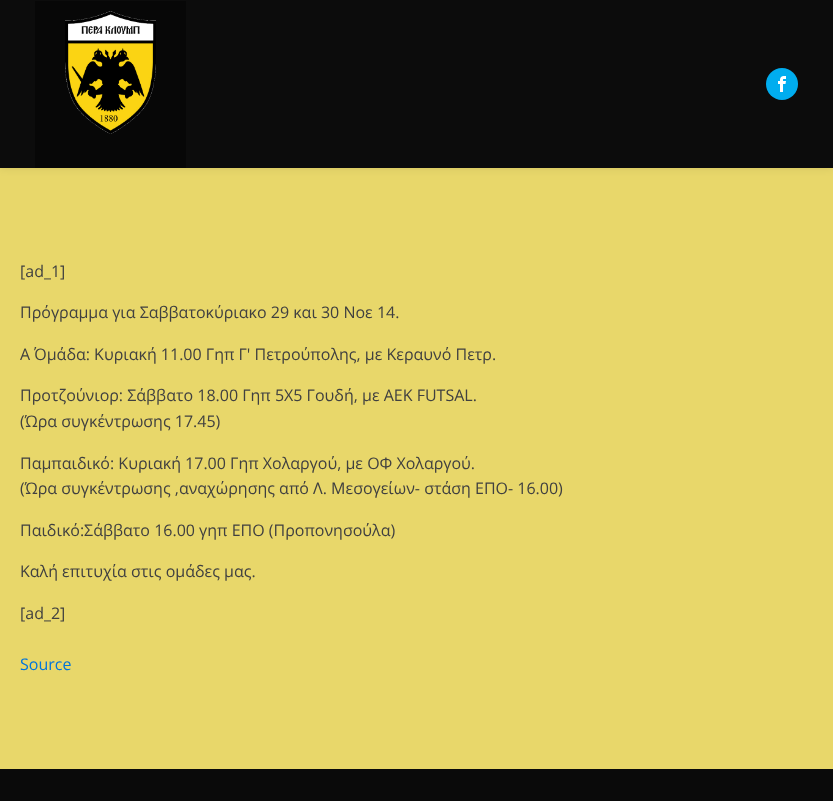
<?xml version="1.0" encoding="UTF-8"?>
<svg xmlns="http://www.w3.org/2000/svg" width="833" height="801">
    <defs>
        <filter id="blur1" x="-50%" y="-200%" width="200%" height="500%"><feGaussianBlur stdDeviation="4"/></filter>
    </defs>
    <rect width="100%" height="100%" fill="#E8D76A"/>
    <rect x="0" y="0" width="833" height="168" fill="#000000" fill-opacity="0.1" filter="url(#blur1)"/>
    <rect x="0" y="0" width="833" height="168" fill="#0C0C0C"/>
    <rect x="35" y="1" width="151" height="167" fill="#070707"/>
    <image x="65" y="11" width="91" height="123" href="img_01.png"/>
    <circle cx="782" cy="84" r="16" fill="#00ADEF"/>
    <image x="778" y="76" width="8" height="16" href="img_02.png"/>
    <text x="20" y="277" font-family="Open Sans" font-size="16" fill="#404040">[ad_1]</text>
    <text x="20" y="318" font-family="Open Sans" font-size="16" fill="#404040">Πρόγραμμα για Σαββατοκύριακο 29 και 30 Νοε 14.</text>
    <text x="20" y="360" font-family="Open Sans" font-size="16" fill="#404040">Α΄ Ομάδα: Κυριακή 11.00 Γηπ Γ' Πετρούπολης, με Κεραυνό Πετρ.</text>
    <text font-family="Open Sans" font-size="16" fill="#404040">
        <tspan x="20" y="401">Προτζούνιορ: Σάββατο 18.00 Γηπ 5Χ5 Γουδή, με ΑΕΚ FUTSAL.</tspan>
        <tspan x="20" y="427">(Ώρα συγκέντρωσης 17.45)</tspan>
    </text>
    <text font-family="Open Sans" font-size="16" fill="#404040">
        <tspan x="20" y="469">Παμπαιδικό: Κυριακή 17.00 Γηπ Χολαργού, με ΟΦ Χολαργού.</tspan>
        <tspan x="20" y="494">(Ώρα συγκέντρωσης ,αναχώρησης από Λ. Μεσογείων- στάση ΕΠΟ- 16.00)</tspan>
    </text>
    <text x="20" y="536" font-family="Open Sans" font-size="16" fill="#404040">Παιδικό:Σάββατο 16.00 γηπ ΕΠΟ (Προπονησούλα)</text>
    <text x="20" y="577" font-family="Open Sans" font-size="16" fill="#404040">Καλή επιτυχία στις ομάδες μας.</text>
    <text x="20" y="619" font-family="Open Sans" font-size="16" fill="#404040">[ad_2]</text>
    <text x="20" y="670" font-family="Open Sans" font-size="16" fill="#0074DB">Source</text>
    <rect x="0" y="769" width="833" height="32" fill="#0A0A0A"/>
</svg>
